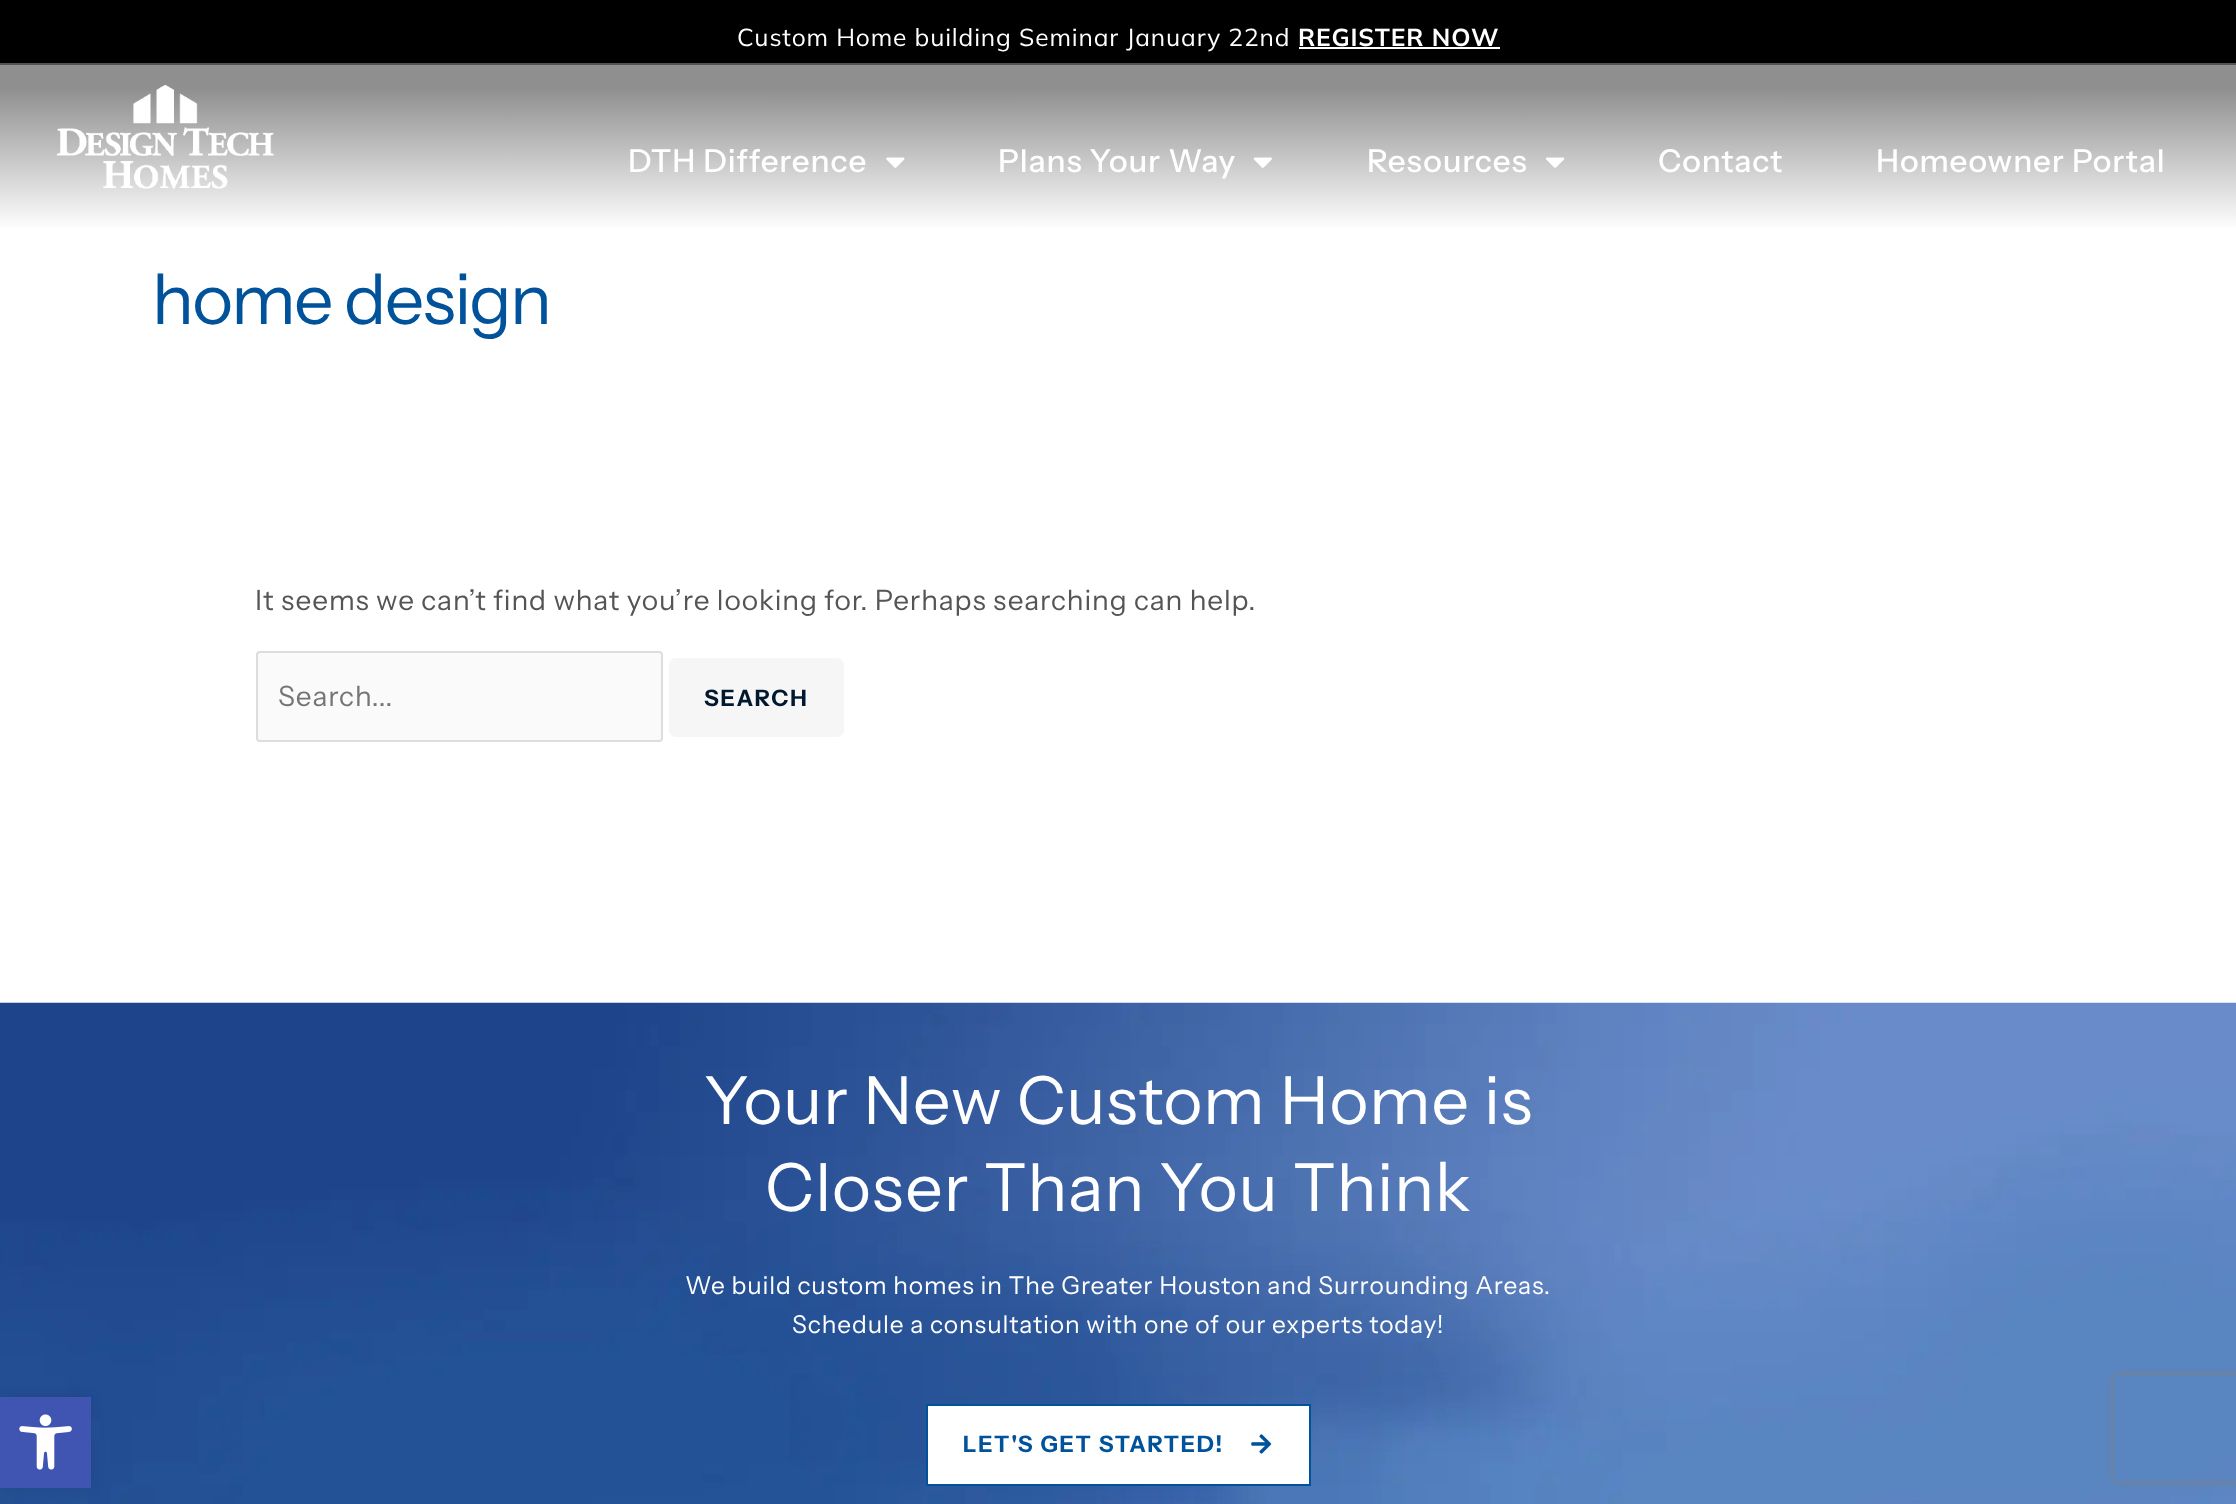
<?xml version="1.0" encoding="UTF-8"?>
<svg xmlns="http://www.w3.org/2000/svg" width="2236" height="1504">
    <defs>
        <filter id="blur1" x="-50%" y="-200%" width="200%" height="500%"><feGaussianBlur stdDeviation="9"/></filter>
        <linearGradient id="g1" gradientUnits="userSpaceOnUse" x1="1118" y1="257" x2="1118" y2="65"><stop offset="0.14" stop-color="#FFFFFF"/><stop offset="0.88" stop-color="#8F8F8F"/></linearGradient>
        <clipPath id="clip1"><path d="M 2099 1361 H 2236 V 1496 H 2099 Z M 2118 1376 H 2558 C 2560 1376 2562 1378 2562 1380 V 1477 C 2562 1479 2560 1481 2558 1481 H 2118 C 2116 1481 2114 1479 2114 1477 V 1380 C 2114 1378 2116 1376 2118 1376 Z" clip-rule="evenodd"/></clipPath>
        <filter id="blur2" x="-50%" y="-200%" width="200%" height="500%"><feGaussianBlur stdDeviation="4.5"/></filter>
    </defs>
    <rect width="100%" height="100%" fill="#FFFFFF"/>
    <image x="0" y="1002" width="2236" height="502" href="img_06.png"/>
    <rect x="0" y="1397" width="91" height="91" fill="#000000" fill-opacity="0.1" filter="url(#blur1)"/>
    <rect x="0" y="1397" width="91" height="91" fill="#4054B2"/>
    <image x="19" y="1414" width="53" height="56" href="img_01.png"/>
    <rect x="0" y="0" width="2236" height="63" fill="#000000"/>
    <rect x="0" y="63" width="2236" height="2" fill="#525252"/>
    <text x="737" y="46" font-family="Mulish" font-size="24.5" letter-spacing="0.88" fill="#FFFFFF">Custom Home building Seminar January 22nd</text>
    <text x="1298" y="46" font-family="Mulish" font-size="24.5" font-weight="700" letter-spacing="0.88" fill="#FFFFFF">REGISTER NOW</text>
    <rect x="1299" y="47" width="201" height="2" fill="#FFFFFF"/>
    <rect x="0" y="65" width="2236" height="162" fill="url(#g1)"/>
    <image x="56" y="85" width="218" height="104" href="img_02.png"/>
    <text x="628" y="172" font-family="Instrument Sans" font-size="31.5" font-weight="500" letter-spacing="0.88" fill="#FFFFFF">DTH Difference</text>
    <image x="886" y="157" width="19" height="11" href="img_03.png"/>
    <text x="998" y="172" font-family="Instrument Sans" font-size="31.5" font-weight="500" letter-spacing="0.88" fill="#FFFFFF">Plans Your Way</text>
    <image x="1253" y="157" width="19" height="11" href="img_04.png"/>
    <text x="1367" y="172" font-family="Instrument Sans" font-size="31.5" font-weight="500" letter-spacing="0.88" fill="#FFFFFF">Resources</text>
    <image x="1546" y="157" width="19" height="11" href="img_05.png"/>
    <text x="1658" y="172" font-family="Instrument Sans" font-size="31.5" font-weight="500" letter-spacing="0.88" fill="#FFFFFF">Contact</text>
    <text x="1876" y="172" font-family="Instrument Sans" font-size="31.5" font-weight="500" letter-spacing="0.88" fill="#FFFFFF">Homeowner Portal</text>
    <text x="152" y="324" font-family="Instrument Sans" font-size="70" letter-spacing="-1.75" fill="#00529B">home design</text>
    <text x="255" y="610" font-family="Instrument Sans" font-size="28" letter-spacing="0.88" fill="#555555">It seems we can’t find what you’re looking for. Perhaps searching can help.</text>
    <rect x="257" y="652" width="405" height="89" rx="3" fill="#FAFAFA" stroke="#DDDDDD" stroke-width="2"/>
    <text x="278" y="706" font-family="Instrument Sans" font-size="28" letter-spacing="0.88" fill="#757575">Search...</text>
    <rect x="669" y="658" width="175" height="79" rx="7" fill="#F6F6F6"/>
    <text x="704" y="706" font-family="Instrument Sans" font-size="22.75" font-weight="700" letter-spacing="1.75" fill="#00192F">SEARCH</text>
    <text x="704" y="1124" font-family="Instrument Sans" font-size="66.5" letter-spacing="0.88" fill="#FFFFFF">Your New Custom Home is</text>
    <text x="765" y="1211" font-family="Instrument Sans" font-size="66.5" letter-spacing="0.88" fill="#FFFFFF">Closer Than You Think</text>
    <text x="685" y="1294" font-family="Instrument Sans" font-size="24.5" letter-spacing="0.88" fill="#FFFFFF">We build custom homes in The Greater Houston and Surrounding Areas.</text>
    <text x="792" y="1333" font-family="Instrument Sans" font-size="24.5" letter-spacing="0.88" fill="#FFFFFF">Schedule a consultation with one of our experts today!</text>
    <rect x="927" y="1405" width="383" height="80" fill="#FFFFFF" stroke="#00529B" stroke-width="2"/>
    <text x="963" y="1452" font-family="Instrument Sans" font-size="22.75" font-weight="700" letter-spacing="1.75" fill="#00529B">LET'S GET STARTED!</text>
    <image x="1251" y="1434" width="21" height="20" href="img_07.png"/>
    <g clip-path="url(#clip1)">
        <rect x="2114" y="1376" width="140" height="105" rx="4" fill="#808080" filter="url(#blur2)"/>
    </g>
</svg>
